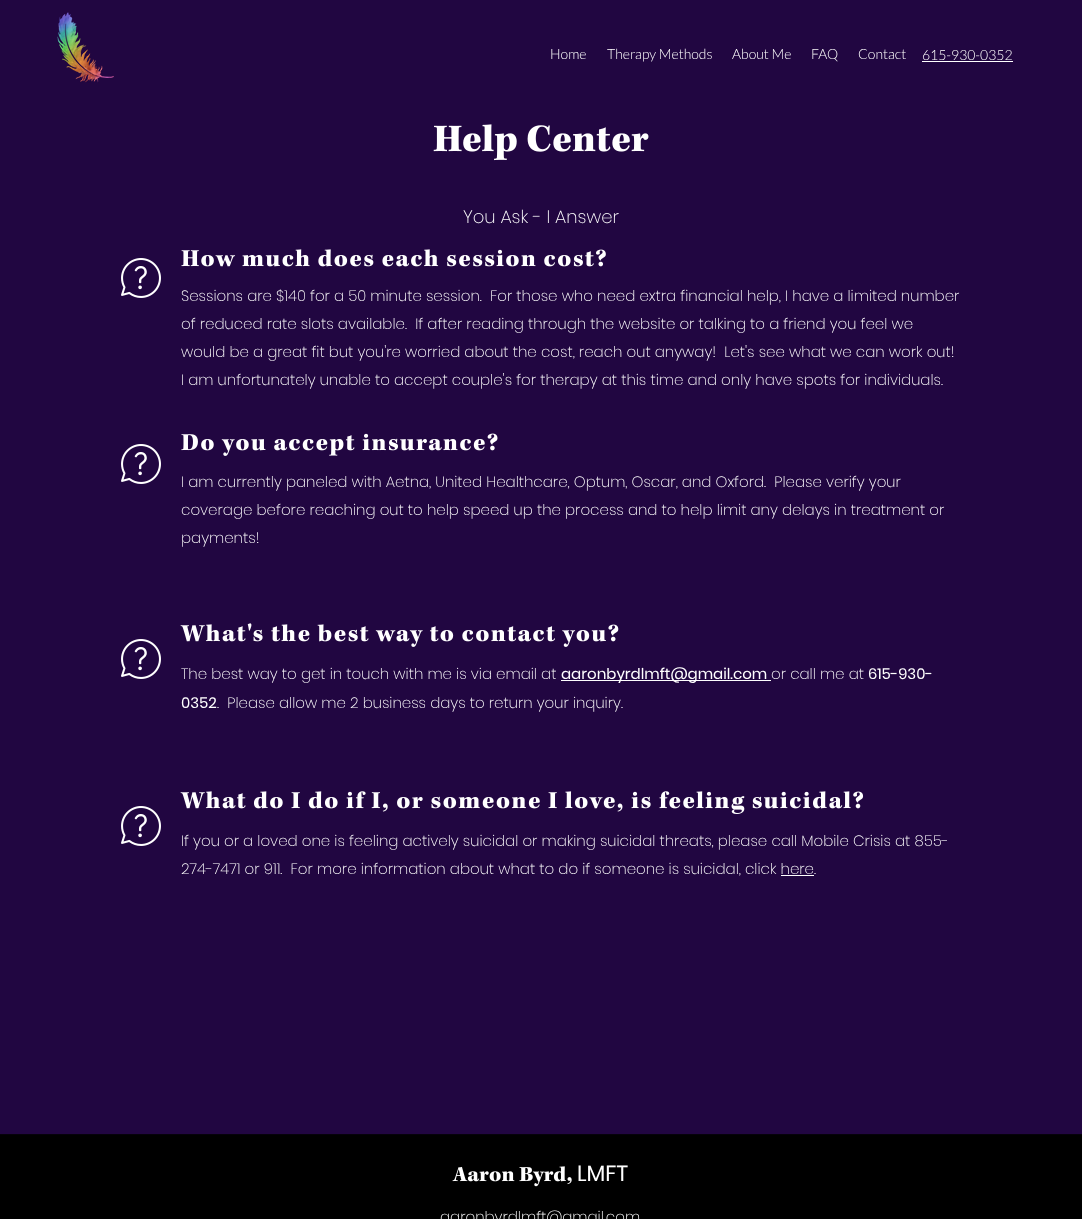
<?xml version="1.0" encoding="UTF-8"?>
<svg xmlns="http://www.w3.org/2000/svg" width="1082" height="1219">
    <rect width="100%" height="100%" fill="#210641"/>
    <image x="57" y="12" width="57" height="71" href="img_01.png"/>
    <text x="550" y="59" font-family="Lato" font-size="14" font-weight="300" fill="#FFFFFF">Home</text>
    <text x="607" y="59" font-family="Lato" font-size="14" font-weight="300" fill="#FFFFFF">Therapy Methods</text>
    <text x="732" y="59" font-family="Lato" font-size="14" font-weight="300" fill="#FFFFFF">About Me</text>
    <text x="811" y="59" font-family="Lato" font-size="14" font-weight="300" fill="#F7F7F7">FAQ</text>
    <text x="858" y="59" font-family="Lato" font-size="14" font-weight="300" fill="#FFFFFF">Contact</text>
    <text x="922" y="60" font-family="Lato" font-size="14" font-weight="300" fill="#FFFFFF">615-930-0352</text>
    <rect x="922" y="61" width="91" height="1" fill="#FFFFFF"/>
    <image x="433" y="124" width="216" height="37" href="img_02.png"/>
    <text x="463" y="223" font-family="Poppins" font-size="18" font-weight="200" fill="#FFFFFF">You Ask - I Answer</text>
    <image x="121" y="258" width="40" height="40" href="img_03.png"/>
    <image x="181" y="249" width="425" height="18" href="img_04.png"/>
    <text font-family="Poppins" font-size="15" font-weight="200" fill="#FFFFFF" xml:space="preserve"><tspan x="181" y="301">Sessions are $140 for a 50 minute session.  For those who need extra financial help, I have a limited number</tspan><tspan x="181" y="329">of reduced rate slots available.  If after reading through the website or talking to a friend you feel we</tspan><tspan x="181" y="357">would be a great fit but you're worried about the cost, reach out anyway!  Let's see what we can work out!</tspan><tspan x="181" y="385">I am unfortunately unable to accept couple's for therapy at this time and only have spots for individuals.</tspan></text>
    <image x="121" y="444" width="40" height="40" href="img_03.png"/>
    <image x="181" y="433" width="317" height="23" href="img_05.png"/>
    <text font-family="Poppins" font-size="15" font-weight="200" fill="#FFFFFF" xml:space="preserve"><tspan x="181" y="487">I am currently paneled with Aetna, United Healthcare, Optum, Oscar, and Oxford.  Please verify your</tspan><tspan x="181" y="515">coverage before reaching out to help speed up the process and to help limit any delays in treatment or</tspan><tspan x="181" y="543">payments!</tspan></text>
    <image x="180" y="623" width="439" height="24" href="img_06.png"/>
    <image x="121" y="639" width="40" height="40" href="img_03.png"/>
    <text x="181" y="679" font-family="Poppins" font-size="15" font-weight="200" fill="#FFFFFF">The best way to get in touch with me is via email at</text>
    <rect x="561" y="680" width="210" height="1" fill="#FFFFFF"/>
    <text x="561" y="679" font-family="Poppins" font-size="15" fill="#FFFFFF">aaronbyrdlmft@gmail.com</text>
    <text x="771" y="679" font-family="Poppins" font-size="15" font-weight="200" fill="#FFFFFF">or call me at</text>
    <text x="868" y="679" font-family="Poppins" font-size="15" fill="#FFFFFF">615-930-</text>
    <text x="181" y="708" font-family="Poppins" font-size="15" fill="#FFFFFF">0352</text>
    <text x="217" y="708" font-family="Poppins" font-size="15" font-weight="200" fill="#FFFFFF" xml:space="preserve">.  Please allow me 2 business days to return your inquiry.</text>
    <image x="180" y="791" width="684" height="23" href="img_07.png"/>
    <image x="121" y="806" width="40" height="40" href="img_03.png"/>
    <text font-family="Poppins" font-size="15" font-weight="200" fill="#FFFFFF" xml:space="preserve"><tspan x="181" y="846">If you or a loved one is feeling actively suicidal or making suicidal threats, please call Mobile Crisis at 855-</tspan><tspan x="181" y="874">274-7471 or 911.  For more information about what to do if someone is suicidal, click here.</tspan></text>
    <rect x="781" y="875" width="33" height="1" fill="#FFFFFF"/>
    <rect x="0" y="1135" width="1082" height="84" fill="#000000"/>
    <rect x="0" y="1134" width="1082" height="1" fill="#05010A"/>
    <image x="452" y="1166" width="120" height="21" href="img_08.png"/>
    <text x="577" y="1181" font-family="Poppins" font-size="22" fill="#FFFFFF">LMFT</text>
    <text x="440" y="1222" font-family="Poppins" font-size="15" font-weight="200" fill="#FFFFFF">aaronbyrdlmft@gmail.com</text>
</svg>
